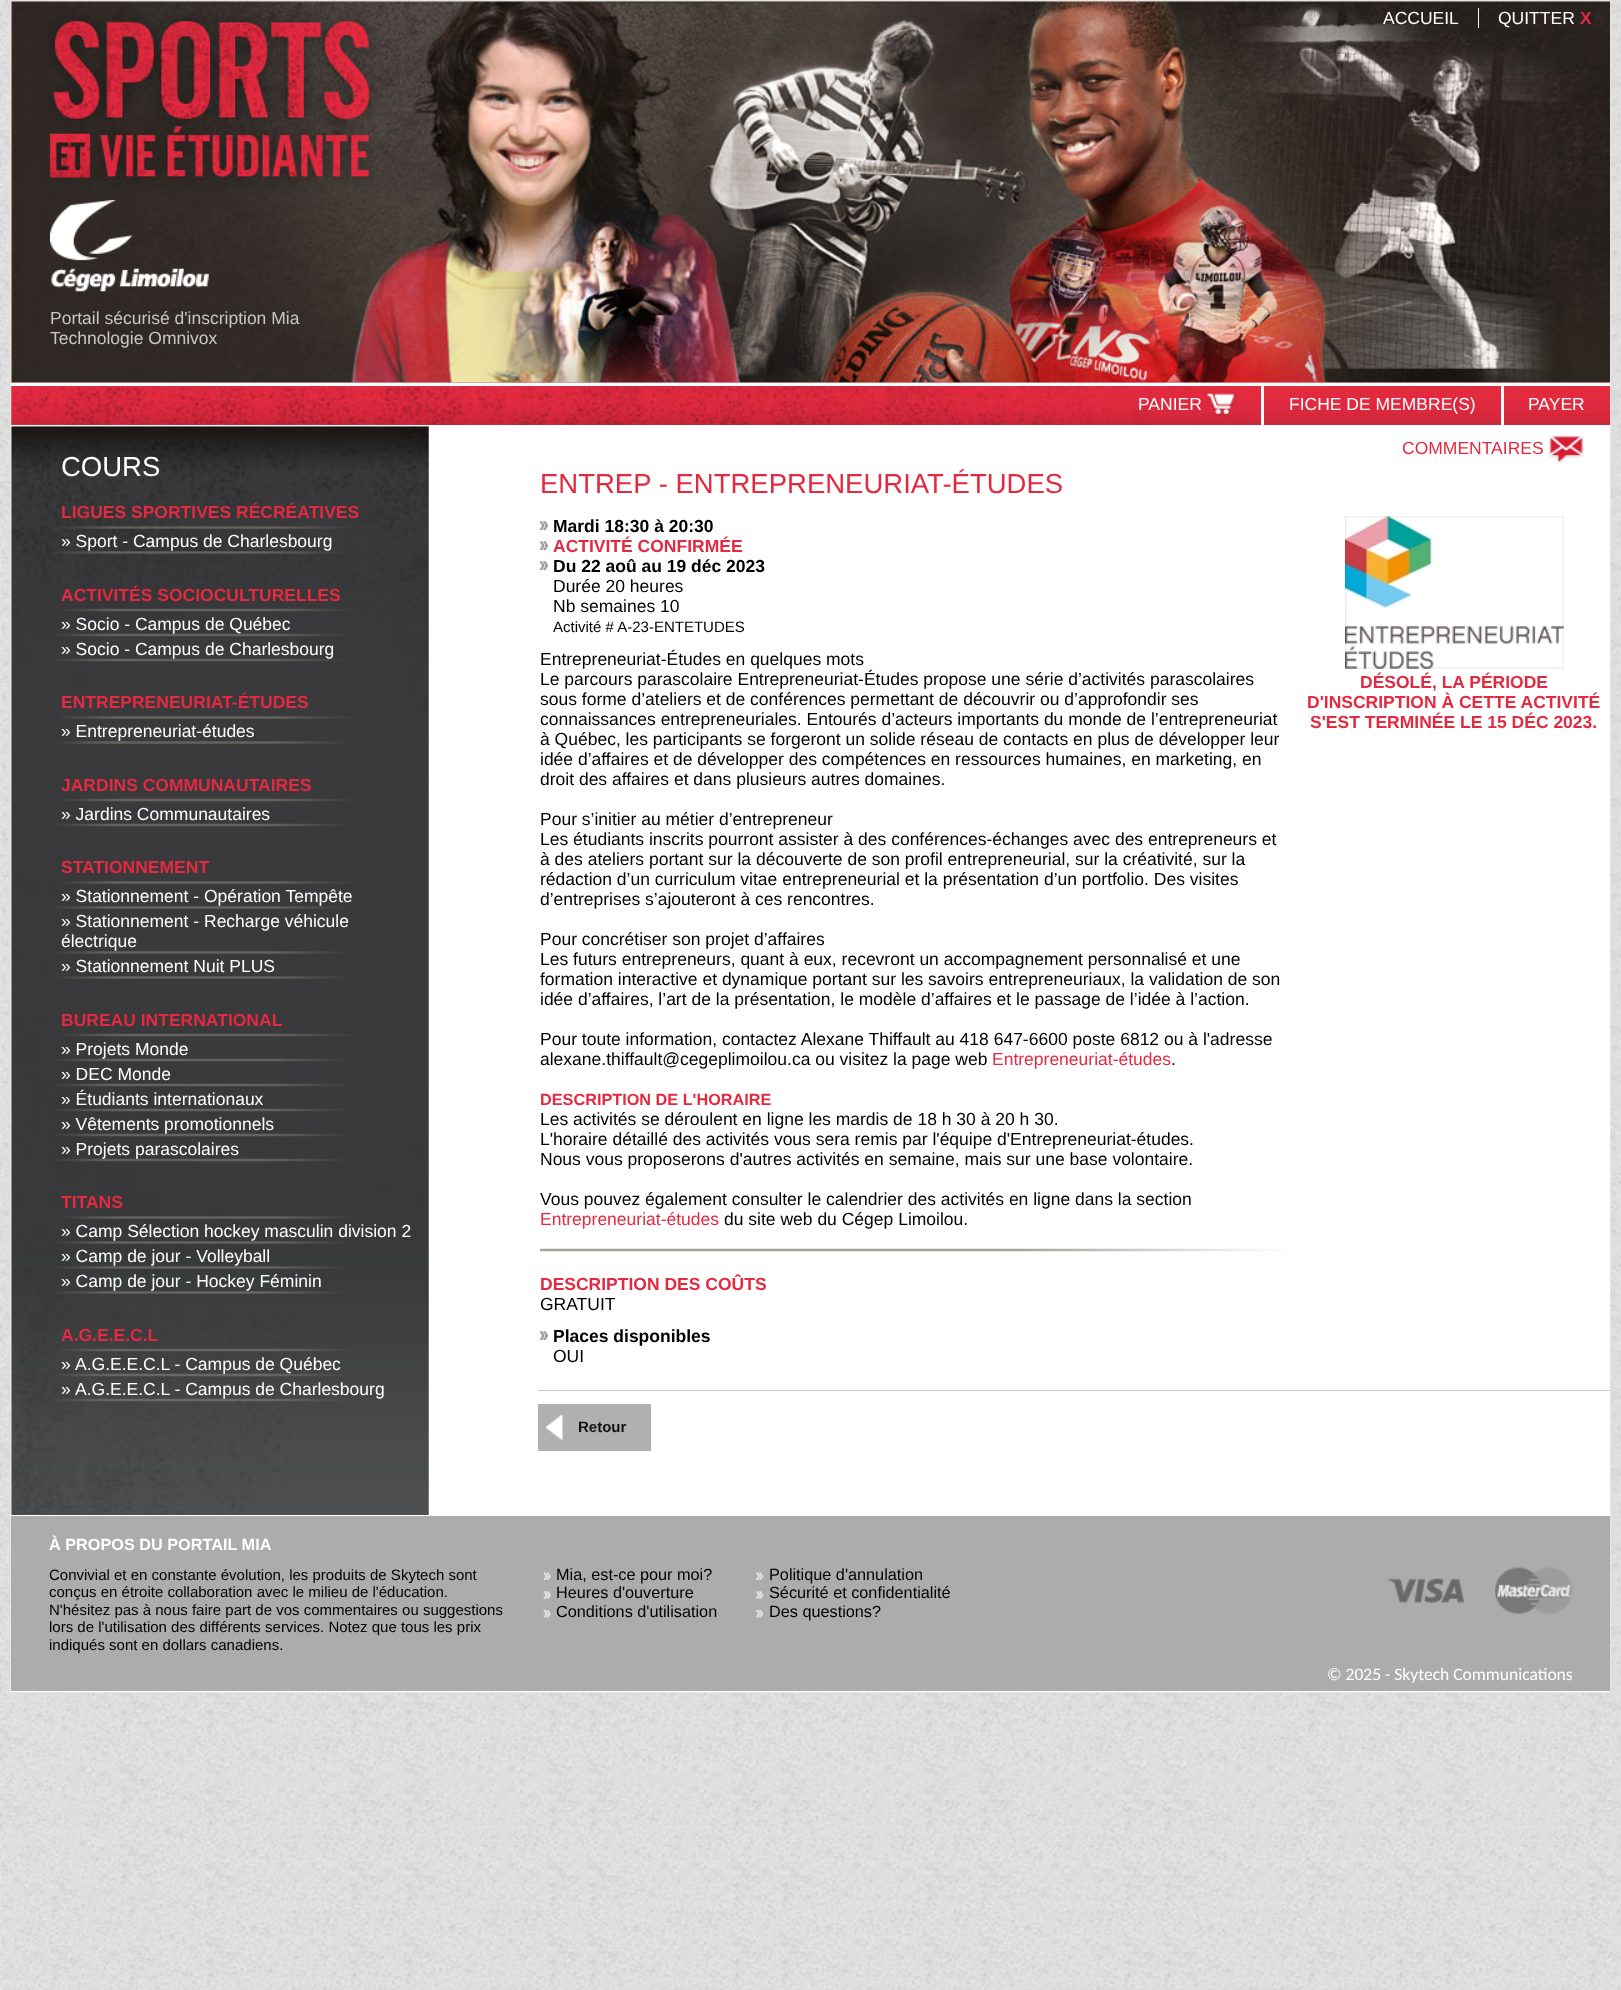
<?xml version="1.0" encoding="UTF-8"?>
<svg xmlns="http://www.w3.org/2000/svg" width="1621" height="1990">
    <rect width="100%" height="100%" fill="#FFFFFF"/>
    <image x="0" y="0" width="1621" height="1990" href="img_01.png"/>
    <rect x="10.5" y="0.5" width="1600" height="1692" fill="#FFFFFF" stroke="#E6E4DC"/>
    <image x="11" y="382" width="1599" height="43" href="img_04.png"/>
    <image x="11" y="1" width="1599" height="382" href="img_02.png"/>
    <text x="1383" y="24" font-family="Liberation Sans" font-size="17.5" fill="#FFFFFF">ACCUEIL</text>
    <rect x="1478" y="8" width="1" height="20" fill="#FFFFFF"/>
    <text x="1498" y="24" font-family="Liberation Sans" font-size="17.5" fill="#FFFFFF">QUITTER</text>
    <text x="1580" y="24" font-family="Liberation Sans" font-size="17.5" font-weight="700" fill="#E32A40">X</text>
    <image x="50" y="200" width="159" height="92" href="img_03.png"/>
    <text font-family="Liberation Sans" font-size="17.5" fill="#C6C7C9">
        <tspan x="50" y="324">Portail sécurisé d'inscription Mia</tspan>
        <tspan x="50" y="344">Technologie Omnivox</tspan>
    </text>
    <rect x="11" y="383" width="1599" height="3" fill="#FFFFFF"/>
    <text x="1138" y="410" font-family="Liberation Sans" font-size="17.5" fill="#FFFFFF">PANIER</text>
    <image x="1206" y="393" width="30" height="24" href="img_05.png"/>
    <rect x="1261" y="386" width="3" height="40" fill="#FFFFFF"/>
    <text x="1289" y="410" font-family="Liberation Sans" font-size="17.5" fill="#FFFFFF">FICHE DE MEMBRE(S)</text>
    <rect x="1501" y="386" width="3" height="40" fill="#FFFFFF"/>
    <text x="1528" y="410" font-family="Liberation Sans" font-size="17.5" fill="#FFFFFF">PAYER</text>
    <image x="11" y="426" width="418" height="1089" href="img_06.png"/>
    <text x="61" y="476" font-family="Liberation Sans" font-size="27.5" fill="#FFFFFF">COURS</text>
    <image x="61" y="526" width="291" height="3" href="img_07.png"/>
    <text x="61" y="518" font-family="Liberation Sans" font-size="17.5" font-weight="700" fill="#E32A40">LIGUES SPORTIVES RÉCRÉATIVES</text>
    <image x="55" y="551" width="291" height="3" href="img_08.png"/>
    <text x="61" y="547" font-family="Liberation Sans" font-size="17.5" fill="#FFFFFF">» Sport - Campus de Charlesbourg</text>
    <image x="61" y="608" width="290" height="4" href="img_09.png"/>
    <text x="61" y="601" font-family="Liberation Sans" font-size="17.5" font-weight="700" fill="#E32A40">ACTIVITÉS SOCIOCULTURELLES</text>
    <image x="55" y="633" width="289" height="4" href="img_10.png"/>
    <text x="61" y="630" font-family="Liberation Sans" font-size="17.5" fill="#FFFFFF">» Socio - Campus de Québec</text>
    <image x="55" y="658" width="289" height="4" href="img_11.png"/>
    <text x="61" y="655" font-family="Liberation Sans" font-size="17.5" fill="#FFFFFF">» Socio - Campus de Charlesbourg</text>
    <image x="62" y="716" width="289" height="3" href="img_12.png"/>
    <text x="61" y="708" font-family="Liberation Sans" font-size="17.5" font-weight="700" fill="#E32A40">ENTREPRENEURIAT-ÉTUDES</text>
    <image x="55" y="741" width="289" height="3" href="img_13.png"/>
    <text x="61" y="737" font-family="Liberation Sans" font-size="17.5" fill="#FFFFFF">» Entrepreneuriat-études</text>
    <image x="62" y="798" width="289" height="4" href="img_14.png"/>
    <text x="61" y="791" font-family="Liberation Sans" font-size="17.5" font-weight="700" fill="#E32A40">JARDINS COMMUNAUTAIRES</text>
    <image x="55" y="823" width="289" height="4" href="img_15.png"/>
    <text x="61" y="820" font-family="Liberation Sans" font-size="17.5" fill="#FFFFFF">» Jardins Communautaires</text>
    <image x="62" y="881" width="289" height="3" href="img_16.png"/>
    <text x="61" y="873" font-family="Liberation Sans" font-size="17.5" font-weight="700" fill="#E32A40">STATIONNEMENT</text>
    <image x="55" y="906" width="289" height="3" href="img_17.png"/>
    <text x="61" y="902" font-family="Liberation Sans" font-size="17.5" fill="#FFFFFF">» Stationnement - Opération Tempête</text>
    <image x="55" y="951" width="289" height="3" href="img_18.png"/>
    <text font-family="Liberation Sans" font-size="17.5" fill="#FFFFFF">
        <tspan x="61" y="927">» Stationnement - Recharge véhicule</tspan>
        <tspan x="61" y="947">électrique</tspan>
    </text>
    <image x="55" y="976" width="289" height="3" href="img_19.png"/>
    <text x="61" y="972" font-family="Liberation Sans" font-size="17.5" fill="#FFFFFF">» Stationnement Nuit PLUS</text>
    <image x="62" y="1033" width="289" height="4" href="img_20.png"/>
    <text x="61" y="1026" font-family="Liberation Sans" font-size="17.5" font-weight="700" fill="#E32A40">BUREAU INTERNATIONAL</text>
    <image x="55" y="1058" width="289" height="4" href="img_21.png"/>
    <text x="61" y="1055" font-family="Liberation Sans" font-size="17.5" fill="#FFFFFF">» Projets Monde</text>
    <image x="55" y="1083" width="289" height="4" href="img_22.png"/>
    <text x="61" y="1080" font-family="Liberation Sans" font-size="17.5" fill="#FFFFFF">» DEC Monde</text>
    <image x="55" y="1108" width="289" height="4" href="img_23.png"/>
    <text x="61" y="1105" font-family="Liberation Sans" font-size="17.5" fill="#FFFFFF">» Étudiants internationaux</text>
    <image x="55" y="1133" width="289" height="4" href="img_24.png"/>
    <text x="61" y="1130" font-family="Liberation Sans" font-size="17.5" fill="#FFFFFF">» Vêtements promotionnels</text>
    <image x="55" y="1158" width="289" height="4" href="img_25.png"/>
    <text x="61" y="1155" font-family="Liberation Sans" font-size="17.5" fill="#FFFFFF">» Projets parascolaires</text>
    <image x="62" y="1216" width="289" height="3" href="img_26.png"/>
    <text x="61" y="1208" font-family="Liberation Sans" font-size="17.5" font-weight="700" fill="#E32A40">TITANS</text>
    <image x="55" y="1241" width="289" height="3" href="img_27.png"/>
    <text x="61" y="1237" font-family="Liberation Sans" font-size="17.5" fill="#FFFFFF">» Camp Sélection hockey masculin division 2</text>
    <image x="55" y="1266" width="289" height="3" href="img_28.png"/>
    <text x="61" y="1262" font-family="Liberation Sans" font-size="17.5" fill="#FFFFFF">» Camp de jour - Volleyball</text>
    <image x="55" y="1291" width="289" height="3" href="img_29.png"/>
    <text x="61" y="1287" font-family="Liberation Sans" font-size="17.5" fill="#FFFFFF">» Camp de jour - Hockey Féminin</text>
    <image x="62" y="1348" width="289" height="4" href="img_30.png"/>
    <text x="61" y="1341" font-family="Liberation Sans" font-size="17.5" font-weight="700" fill="#E32A40">A.G.E.E.C.L</text>
    <image x="55" y="1373" width="289" height="4" href="img_31.png"/>
    <text x="61" y="1370" font-family="Liberation Sans" font-size="17.5" fill="#FFFFFF">»</text>
    <text x="75" y="1370" font-family="Liberation Sans" font-size="17.5" fill="#FFFFFF">A.G.E.E.C.L - Campus de Québec</text>
    <image x="55" y="1398" width="289" height="4" href="img_32.png"/>
    <text x="61" y="1395" font-family="Liberation Sans" font-size="17.5" fill="#FFFFFF">»</text>
    <text x="75" y="1395" font-family="Liberation Sans" font-size="17.5" fill="#FFFFFF">A.G.E.E.C.L - Campus de Charlesbourg</text>
    <text x="1402" y="454" font-family="Liberation Sans" font-size="17.5" fill="#E32A40">COMMENTAIRES</text>
    <image x="1548" y="436" width="36" height="28" href="img_33.png"/>
    <text x="540" y="493" font-family="Liberation Sans" font-size="27.5" fill="#E32A40">ENTREP - ENTREPRENEURIAT-ÉTUDES</text>
    <image x="540" y="521" width="9" height="9" href="img_34.png"/>
    <text x="553" y="532" font-family="Liberation Sans" font-size="17.5" font-weight="700" fill="#000000">Mardi 18:30 à 20:30</text>
    <image x="540" y="541" width="9" height="9" href="img_34.png"/>
    <text x="553" y="552" font-family="Liberation Sans" font-size="17.5" font-weight="700" fill="#E32A40">ACTIVITÉ CONFIRMÉE</text>
    <image x="540" y="561" width="9" height="9" href="img_34.png"/>
    <text x="553" y="572" font-family="Liberation Sans" font-size="17.5" font-weight="700" fill="#000000">Du 22 aoû au 19 déc 2023</text>
    <text font-family="Liberation Sans" font-size="17.5" fill="#000000">
        <tspan x="553" y="592">Durée 20 heures</tspan>
        <tspan x="553" y="612">Nb semaines 10</tspan>
    </text>
    <text x="553" y="632" font-family="Liberation Sans" font-size="15" fill="#000000">Activité # A-23-ENTETUDES</text>
    <text font-family="Liberation Sans" font-size="17.5" fill="#000000">
        <tspan x="540" y="665">Entrepreneuriat-Études en quelques mots</tspan>
        <tspan x="540" y="685">Le parcours parascolaire Entrepreneuriat-Études propose une série d’activités parascolaires</tspan>
        <tspan x="540" y="705">sous forme d’ateliers et de conférences permettant de découvrir ou d’approfondir ses</tspan>
        <tspan x="540" y="725">connaissances entrepreneuriales. Entourés d’acteurs importants du monde de l’entrepreneuriat</tspan>
        <tspan x="540" y="745">à Québec, les participants se forgeront un solide réseau de contacts en plus de développer leur</tspan>
        <tspan x="540" y="765">idée d’affaires et de développer des compétences en ressources humaines, en marketing, en</tspan>
        <tspan x="540" y="785">droit des affaires et dans plusieurs autres domaines.</tspan>
    </text>
    <text font-family="Liberation Sans" font-size="17.5" fill="#000000">
        <tspan x="540" y="825">Pour s’initier au métier d’entrepreneur</tspan>
        <tspan x="540" y="845">Les étudiants inscrits pourront assister à des conférences-échanges avec des entrepreneurs et</tspan>
        <tspan x="540" y="865">à des ateliers portant sur la découverte de son profil entrepreneurial, sur la créativité, sur la</tspan>
        <tspan x="540" y="885">rédaction d’un curriculum vitae entrepreneurial et la présentation d’un portfolio. Des visites</tspan>
        <tspan x="540" y="905">d’entreprises s’ajouteront à ces rencontres.</tspan>
    </text>
    <text font-family="Liberation Sans" font-size="17.5" fill="#000000">
        <tspan x="540" y="945">Pour concrétiser son projet d’affaires</tspan>
        <tspan x="540" y="965">Les futurs entrepreneurs, quant à eux, recevront un accompagnement personnalisé et une</tspan>
        <tspan x="540" y="985">formation interactive et dynamique portant sur les savoirs entrepreneuriaux, la validation de son</tspan>
        <tspan x="540" y="1005">idée d’affaires, l’art de la présentation, le modèle d’affaires et le passage de l’idée à l’action.</tspan>
    </text>
    <text font-family="Liberation Sans" font-size="17.5" fill="#000000">
        <tspan x="540" y="1045">Pour toute information, contactez Alexane Thiffault au 418 647-6600 poste 6812 ou à l'adresse</tspan>
        <tspan x="540" y="1065">alexane.thiffault@cegeplimoilou.ca ou visitez la page web</tspan>
    </text>
    <text x="992" y="1065" font-family="Liberation Sans" font-size="17.5" fill="#E32A40">Entrepreneuriat-études</text>
    <text x="1171" y="1065" font-family="Liberation Sans" font-size="17.5" fill="#000000">.</text>
    <text x="540" y="1105" font-family="Liberation Sans" font-size="16.25" font-weight="700" fill="#E32A40">DESCRIPTION DE L'HORAIRE</text>
    <text font-family="Liberation Sans" font-size="17.5" fill="#000000">
        <tspan x="540" y="1125">Les activités se déroulent en ligne les mardis de 18 h 30 à 20 h 30.</tspan>
        <tspan x="540" y="1145">L'horaire détaillé des activités vous sera remis par l'équipe d'Entrepreneuriat-études.</tspan>
        <tspan x="540" y="1165">Nous vous proposerons d'autres activités en semaine, mais sur une base volontaire.</tspan>
    </text>
    <text x="540" y="1205" font-family="Liberation Sans" font-size="17.5" fill="#000000">Vous pouvez également consulter le calendrier des activités en ligne dans la section</text>
    <text x="540" y="1225" font-family="Liberation Sans" font-size="17.5" fill="#E32A40">Entrepreneuriat-études</text>
    <text x="724" y="1225" font-family="Liberation Sans" font-size="17.5" fill="#000000">du site web du Cégep Limoilou.</text>
    <image x="540" y="1248" width="746" height="4" href="img_35.png"/>
    <text x="540" y="1290" font-family="Liberation Sans" font-size="17.5" font-weight="700" fill="#E32A40">DESCRIPTION DES COÛTS</text>
    <text x="540" y="1310" font-family="Liberation Sans" font-size="17.5" fill="#000000">GRATUIT</text>
    <image x="540" y="1331" width="9" height="9" href="img_34.png"/>
    <text x="553" y="1342" font-family="Liberation Sans" font-size="17.5" font-weight="700" fill="#000000">Places disponibles</text>
    <text x="553" y="1362" font-family="Liberation Sans" font-size="17.5" fill="#000000">OUI</text>
    <image x="1345" y="516" width="219" height="153" href="img_36.png"/>
    <text x="1360" y="688" font-family="Liberation Sans" font-size="17.5" font-weight="700" fill="#E32A40">DÉSOLÉ, LA PÉRIODE</text>
    <text x="1307" y="708" font-family="Liberation Sans" font-size="17.5" font-weight="700" fill="#E32A40">D'INSCRIPTION À CETTE ACTIVITÉ</text>
    <text x="1310" y="728" font-family="Liberation Sans" font-size="17.5" font-weight="700" fill="#E32A40">S'EST TERMINÉE LE 15 DÉC 2023.</text>
    <rect x="538" y="1390" width="1072" height="1" fill="#CCCCCC"/>
    <rect x="538" y="1404" width="113" height="47" fill="#B0B0B0"/>
    <image x="545" y="1415" width="18" height="25" href="img_37.png"/>
    <text x="578" y="1432" font-family="Liberation Sans" font-size="15" font-weight="700" fill="#131313">Retour</text>
    <rect x="11" y="1516" width="1599" height="175" fill="#ACACAC"/>
    <text x="49" y="1550" font-family="Liberation Sans" font-size="16.25" font-weight="700" fill="#FFFFFF">À PROPOS DU PORTAIL MIA</text>
    <text font-family="Liberation Sans" font-size="15" fill="#000000">
        <tspan x="49" y="1580">Convivial et en constante évolution, les produits de Skytech sont</tspan>
        <tspan x="49" y="1597">conçus en étroite collaboration avec le milieu de l'éducation.</tspan>
        <tspan x="49" y="1615">N'hésitez pas à nous faire part de vos commentaires ou suggestions</tspan>
        <tspan x="49" y="1632">lors de l'utilisation des différents services. Notez que tous les prix</tspan>
        <tspan x="49" y="1650">indiqués sont en dollars canadiens.</tspan>
    </text>
    <image x="543" y="1572" width="8" height="8" href="img_38.png"/>
    <text x="556" y="1580" font-family="Liberation Sans" font-size="16.25" fill="#000000">Mia, est-ce pour moi?</text>
    <image x="755" y="1572" width="9" height="8" href="img_39.png"/>
    <text x="769" y="1580" font-family="Liberation Sans" font-size="16.25" fill="#000000">Politique d'annulation</text>
    <image x="543" y="1591" width="8" height="8" href="img_40.png"/>
    <text x="556" y="1598" font-family="Liberation Sans" font-size="16.25" fill="#000000">Heures d'ouverture</text>
    <image x="756" y="1591" width="8" height="8" href="img_41.png"/>
    <text x="769" y="1598" font-family="Liberation Sans" font-size="16.25" fill="#000000">Sécurité et confidentialité</text>
    <image x="543" y="1610" width="8" height="8" href="img_42.png"/>
    <text x="556" y="1617" font-family="Liberation Sans" font-size="16.25" fill="#000000">Conditions d'utilisation</text>
    <image x="755" y="1610" width="9" height="8" href="img_43.png"/>
    <text x="769" y="1617" font-family="Liberation Sans" font-size="16.25" fill="#000000">Des questions?</text>
    <image x="1387" y="1578" width="77" height="25" href="img_44.png"/>
    <image x="1495" y="1567" width="78" height="47" href="img_45.png"/>
    <text x="1327" y="1680" font-family="Carlito" font-size="17.5" fill="#FFFFFF">© 2025 - Skytech Communications</text>
</svg>
